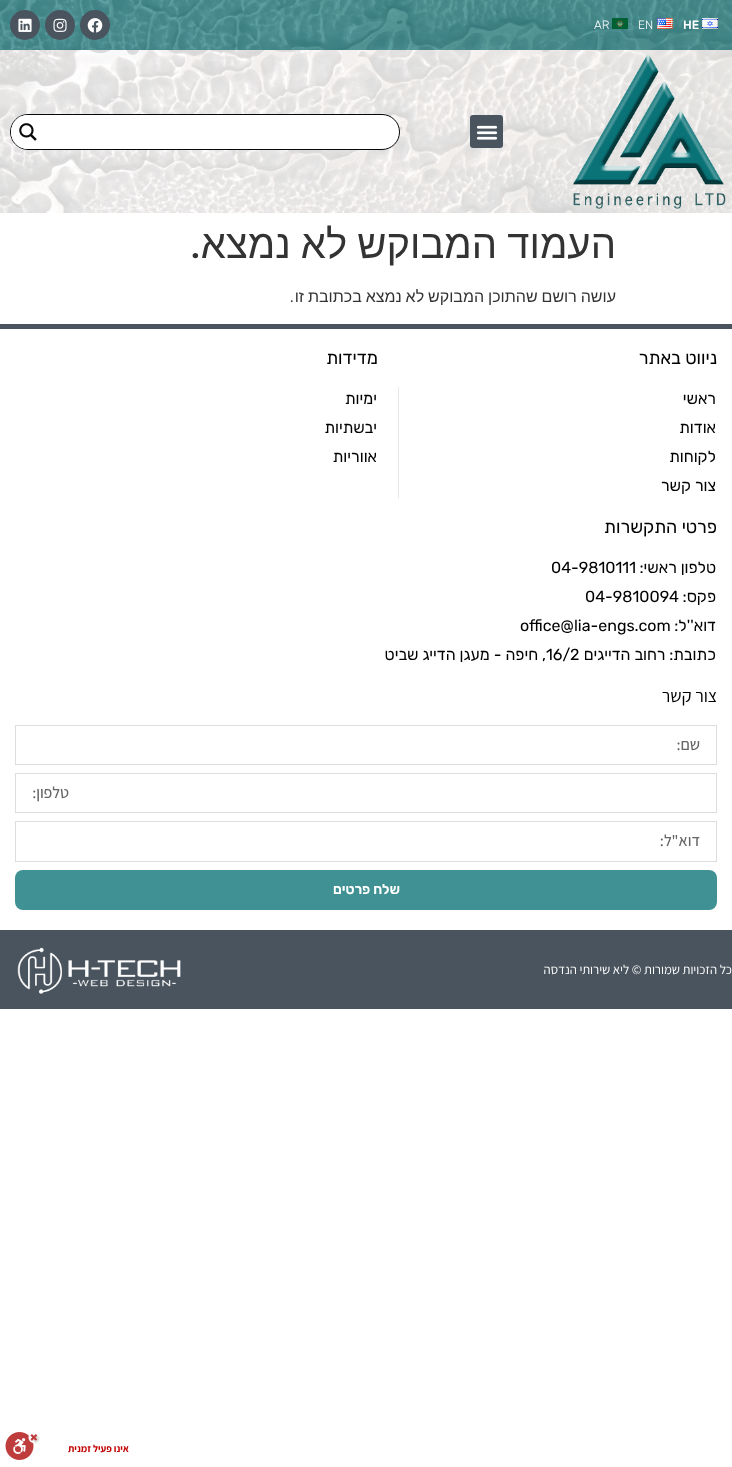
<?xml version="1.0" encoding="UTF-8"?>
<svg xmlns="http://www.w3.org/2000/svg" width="732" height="1467">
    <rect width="100%" height="100%" fill="#FFFFFF"/>
    <rect x="0" y="0" width="732" height="50" fill="#409194"/>
    <image x="0" y="0" width="732" height="50" href="img_01.png"/>
    <image x="702" y="18" width="16" height="11" href="img_02.png"/>
    <text x="683" y="29" font-family="Rubik" font-size="12" font-weight="500" fill="#FFFFFF">HE</text>
    <image x="657" y="18" width="16" height="11" href="img_03.png"/>
    <text x="638" y="29" font-family="Rubik" font-size="12" font-weight="300" fill="#FFFFFF">EN</text>
    <image x="612" y="18" width="16" height="11" href="img_04.png"/>
    <text x="594" y="29" font-family="Rubik" font-size="12" font-weight="300" fill="#FFFFFF">AR</text>
    <circle cx="95" cy="25" r="15" fill="#4A545E"/>
    <image x="87" y="18" width="16" height="15" href="img_05.png"/>
    <circle cx="60" cy="25" r="15" fill="#4A545E"/>
    <image x="53" y="18" width="14" height="14" href="img_06.png"/>
    <circle cx="25" cy="25" r="15" fill="#4A545E"/>
    <image x="18" y="18" width="14" height="14" href="img_07.png"/>
    <image x="0" y="50" width="732" height="163" href="img_08.png"/>
    <image x="573" y="54" width="153" height="155" href="img_09.png"/>
    <rect x="470" y="115" width="33" height="33" rx="3" fill="#4A545E"/>
    <image x="476" y="125" width="22" height="15" href="img_10.png"/>
    <rect x="10.5" y="114.5" width="389" height="35" rx="17.5" fill="#FFFFFF" stroke="#070808"/>
    <path d="M 28 115 H 45 V 149 H 28 C 18.5 149 11 141.5 11 132 C 11 122.5 18.5 115 28 115 Z" fill="#FFFFFF"/>
    <image x="19" y="123" width="18" height="18" href="img_11.png"/>
    <text x="616" y="258" word-spacing="-1" font-family="Liberation Sans" font-size="40" direction="rtl" fill="#333333">העמוד המבוקש לא נמצא</text>
    <text x="201" y="258" font-family="Roboto" font-size="40" font-weight="500" direction="rtl" fill="#333333">.</text>
    <text x="616" y="302" word-spacing="-0.5" font-family="Liberation Sans" font-size="16" direction="rtl" fill="#333333">עושה רושם שהתוכן המבוקש לא נמצא בכתובת זו</text>
    <text x="294" y="302" font-family="Roboto" font-size="16" direction="rtl" fill="#333333">.</text>
    <rect x="0" y="324" width="732" height="5" fill="#4A545E"/>
    <text x="717" y="364" font-family="Rubik" font-size="18" direction="rtl" fill="#000000">ניווט באתר</text>
    <rect x="398" y="387" width="1" height="111" fill="#E8E8E8"/>
    <text font-family="Rubik" font-size="16" direction="rtl" fill="#000000">
        <tspan x="716" y="404">ראשי</tspan>
        <tspan x="716" y="433">אודות</tspan>
        <tspan x="716" y="462">לקוחות</tspan>
        <tspan x="716" y="491">צור קשר</tspan>
    </text>
    <text x="378" y="364" font-family="Rubik" font-size="18" direction="rtl" fill="#000000">מדידות</text>
    <text font-family="Rubik" font-size="16" direction="rtl" fill="#000000">
        <tspan x="377" y="404">ימיות</tspan>
        <tspan x="377" y="433">יבשתיות</tspan>
        <tspan x="377" y="462">אווריות</tspan>
    </text>
    <text x="717" y="533" font-family="Rubik" font-size="18" direction="rtl" fill="#000000">פרטי התקשרות</text>
    <text x="716" y="573" font-family="Rubik" font-size="16" direction="rtl" fill="#000000">טלפון ראשי:</text>
    <text x="551" y="573" font-family="Rubik" font-size="16" fill="#000000">04-9810111</text>
    <text x="716" y="602" font-family="Rubik" font-size="16" direction="rtl" fill="#000000">פקס:</text>
    <text x="585" y="602" font-family="Rubik" font-size="16" fill="#000000">04-9810094</text>
    <text x="716" y="631" font-family="Rubik" font-size="16" direction="rtl" fill="#000000">דוא''ל:</text>
    <text x="520" y="631" font-family="Rubik" font-size="16" fill="#000000">office@lia-engs.com</text>
    <text x="716" y="660" font-family="Rubik" font-size="16" direction="rtl" fill="#000000">כתובת: רחוב הדייגים</text>
    <text x="546" y="660" font-family="Rubik" font-size="16" fill="#000000">16/2</text>
    <text x="546" y="660" font-family="Rubik" font-size="16" direction="rtl" fill="#000000">, חיפה - מעגן הדייג שביט</text>
    <text x="717" y="702" font-family="Assistant" font-size="18" direction="rtl" fill="#000000">צור קשר</text>
    <rect x="15.5" y="725.5" width="701" height="39" fill="none" stroke="#DDDDDD"/>
    <text x="700" y="750" font-family="Assistant" font-size="16" font-weight="500" direction="rtl" fill="#666666">שם:</text>
    <rect x="15.5" y="773.5" width="701" height="39" fill="none" stroke="#DDDDDD"/>
    <text x="69" y="798" font-family="Assistant" font-size="16" font-weight="500" direction="rtl" fill="#666666">טלפון:</text>
    <rect x="15.5" y="821.5" width="701" height="40" fill="none" stroke="#DDDDDD"/>
    <text x="700" y="846" font-family="Assistant" font-size="16" font-weight="500" direction="rtl" fill="#666666">דוא"ל:</text>
    <rect x="15" y="870" width="702" height="40" rx="8" fill="#409194"/>
    <text x="400" y="894" font-family="Rubik" font-size="14" font-weight="600" direction="rtl" fill="#FFFFFF">שלח פרטים</text>
    <rect x="0" y="930" width="732" height="79" fill="#4A545E"/>
    <text x="732" y="974" font-family="Assistant" font-size="13" direction="rtl" fill="#FFFFFF">כל הזכויות שמורות © ליא שירותי הנדסה</text>
    <image x="17" y="947" width="164" height="47" href="img_12.png"/>
    <text x="129" y="1452" font-family="Assistant" font-size="10" font-weight="700" direction="rtl" fill="#C20000">אינו פעיל זמנית</text>
    <image x="5" y="1432" width="35" height="28" href="img_13.png"/>
</svg>
